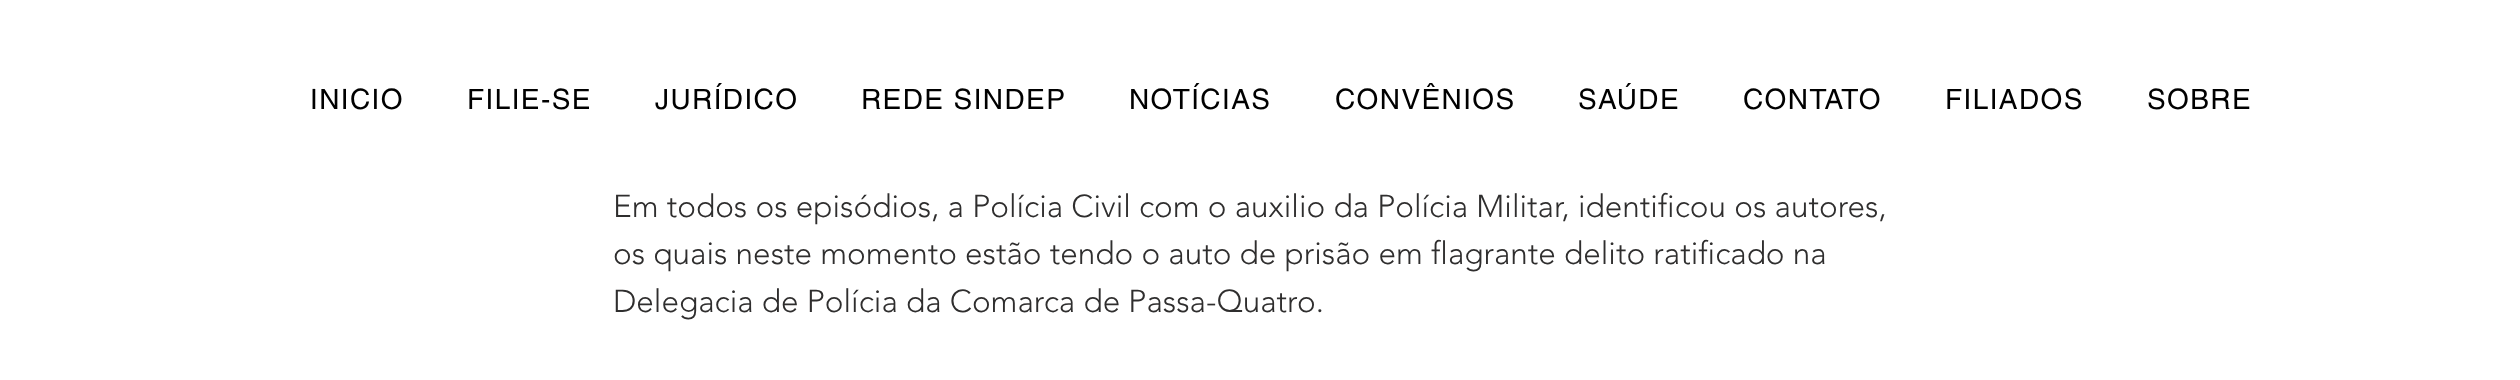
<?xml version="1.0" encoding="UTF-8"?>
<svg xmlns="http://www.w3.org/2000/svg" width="2520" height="380">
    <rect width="100%" height="100%" fill="#FFFFFF"/>
    <text x="310" y="109" font-family="helvetica" font-size="28" letter-spacing="1.4" fill="#000000">INICIO</text>
    <text x="467" y="109" font-family="helvetica" font-size="28" letter-spacing="1.4" fill="#000000">FILIE-SE</text>
    <text x="655" y="109" font-family="helvetica" font-size="28" letter-spacing="1.4" fill="#000000">JURÍDICO</text>
    <text x="861" y="109" font-family="helvetica" font-size="28" letter-spacing="1.4" fill="#000000">REDE SINDEP</text>
    <text x="1129" y="109" font-family="helvetica" font-size="28" letter-spacing="1.4" fill="#000000">NOTÍCIAS</text>
    <text x="1335" y="109" font-family="helvetica" font-size="28" letter-spacing="1.4" fill="#000000">CONVÊNIOS</text>
    <text x="1578" y="109" font-family="helvetica" font-size="28" letter-spacing="1.4" fill="#000000">SAÚDE</text>
    <text x="1743" y="109" font-family="helvetica" font-size="28" letter-spacing="1.4" fill="#000000">CONTATO</text>
    <text x="1945" y="109" font-family="helvetica" font-size="28" letter-spacing="1.4" fill="#000000">FILIADOS</text>
    <text x="2147" y="109" font-family="helvetica" font-size="28" letter-spacing="1.4" fill="#000000">SOBRE</text>
    <text font-family="'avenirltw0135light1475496'" font-size="31.5" font-weight="300" fill="#2F2E2E">
        <tspan x="613" y="217">Em todos os episódios, a Polícia Civil com o auxilio da Polícia Militar, identificou os autores,</tspan>
        <tspan x="613" y="264">os quais neste momento estão tendo o auto de prisão em flagrante delito ratificado na</tspan>
        <tspan x="613" y="312">Delegacia de Polícia da Comarca de Passa-Quatro.</tspan>
    </text>
</svg>
